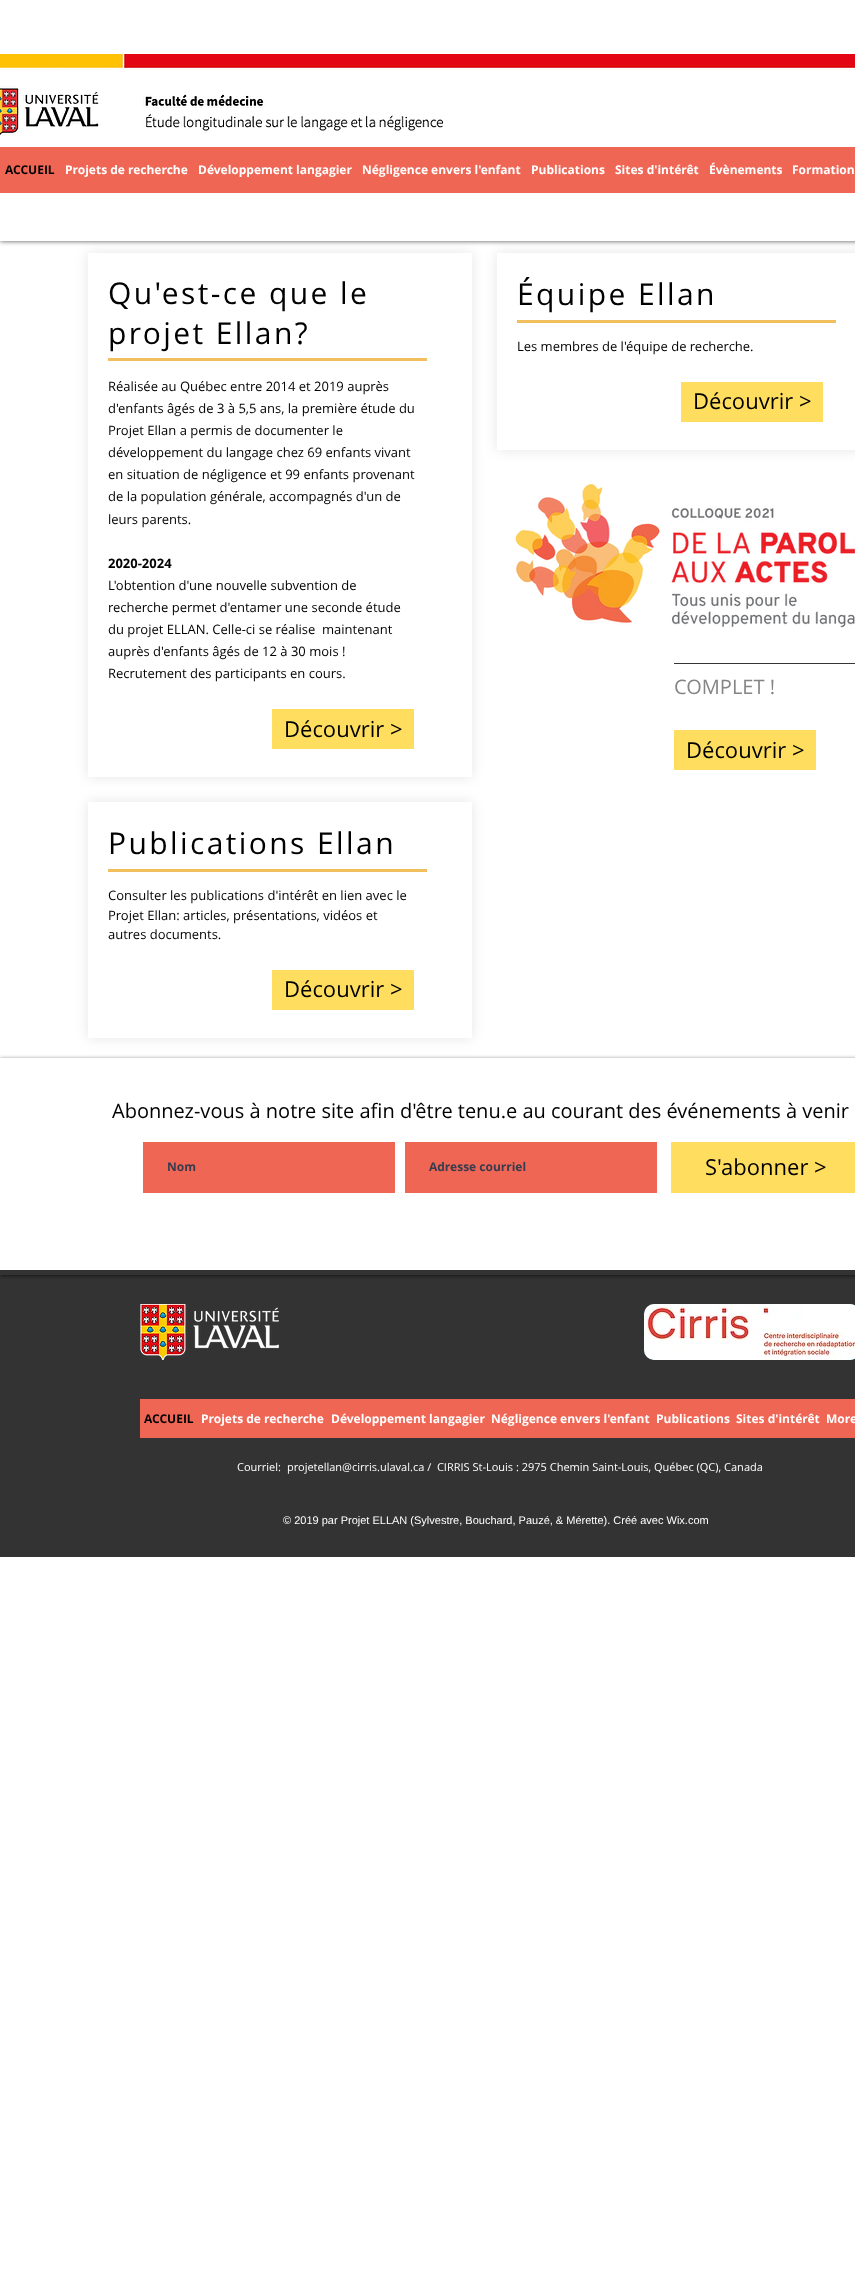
<?xml version="1.0" encoding="UTF-8"?>
<svg xmlns="http://www.w3.org/2000/svg" width="855" height="2275">
    <defs>
        <clipPath id="clip1"><rect x="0" y="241" width="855" height="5"/></clipPath>
        <filter id="blur1" x="-50%" y="-200%" width="200%" height="500%"><feGaussianBlur stdDeviation="2.5"/></filter>
        <clipPath id="clip2"><path d="M 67 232 H 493 V 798 H 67 Z M 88 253 H 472 V 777 H 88 Z" clip-rule="evenodd"/></clipPath>
        <filter id="blur2" x="-50%" y="-200%" width="200%" height="500%"><feGaussianBlur stdDeviation="6.5"/></filter>
        <clipPath id="clip3"><path d="M 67 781 H 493 V 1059 H 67 Z M 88 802 H 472 V 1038 H 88 Z" clip-rule="evenodd"/></clipPath>
        <clipPath id="clip4"><path d="M 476 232 H 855 V 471 H 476 Z M 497 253 H 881 V 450 H 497 Z" clip-rule="evenodd"/></clipPath>
        <clipPath id="clip5"><path d="M 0 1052 H 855 V 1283 H 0 Z M 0 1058 H 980 V 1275 H 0 Z" clip-rule="evenodd"/></clipPath>
        <filter id="blur3" x="-50%" y="-200%" width="200%" height="500%"><feGaussianBlur stdDeviation="2"/></filter>
    </defs>
    <rect width="100%" height="100%" fill="#FFFFFF"/>
    <g clip-path="url(#clip1)">
        <rect x="0" y="0" width="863" height="241" fill="#000000" fill-opacity="0.7" filter="url(#blur1)"/>
    </g>
    <image x="0" y="54" width="855" height="88" href="img_01.png"/>
    <rect x="0" y="147" width="855" height="46" fill="#F06655"/>
    <text x="5" y="174" font-family="Open Sans" font-size="12" font-weight="700" fill="#000000">ACCUEIL</text>
    <text x="65" y="174" font-family="Open Sans" font-size="12" font-weight="700" fill="#FFFFFF">Projets de recherche</text>
    <text x="198" y="174" font-family="Open Sans" font-size="12" font-weight="700" fill="#FFFFFF">Développement langagier</text>
    <text x="362" y="174" font-family="Open Sans" font-size="12" font-weight="700" fill="#FFFFFF">Négligence envers l'enfant</text>
    <text x="531" y="174" font-family="Open Sans" font-size="12" font-weight="700" fill="#FFFFFF">Publications</text>
    <text x="615" y="174" font-family="Open Sans" font-size="12" font-weight="700" fill="#FFFFFF">Sites d'intérêt</text>
    <text x="709" y="174" font-family="Open Sans" font-size="12" font-weight="700" fill="#FFFFFF">Évènements</text>
    <text x="792" y="174" font-family="Open Sans" font-size="12" font-weight="700" fill="#FFFFFF">Formation</text>
    <g clip-path="url(#clip2)">
        <rect x="88" y="253" width="384" height="524" fill="#000000" fill-opacity="0.1" filter="url(#blur2)"/>
    </g>
    <text font-family="Open Sans" font-size="30" letter-spacing="2.4" fill="#000000">
        <tspan x="108" y="304">Qu'est-ce que le</tspan>
        <tspan x="108" y="344">projet Ellan?</tspan>
    </text>
    <rect x="108" y="358" width="319" height="3" fill="#F2BF5E"/>
    <text font-family="Open Sans" font-size="13" fill="#000000">
        <tspan x="108" y="391">Réalisée au Québec entre 2014 et 2019 auprès</tspan>
        <tspan x="108" y="413">d'enfants âgés de 3 à 5,5 ans, la première étude du</tspan>
        <tspan x="108" y="435">Projet Ellan a permis de documenter le</tspan>
        <tspan x="108" y="457">développement du langage chez 69 enfants vivant</tspan>
        <tspan x="108" y="479">en situation de négligence et 99 enfants provenant</tspan>
        <tspan x="108" y="501">de la population générale, accompagnés d'un de</tspan>
        <tspan x="108" y="524">leurs parents.</tspan>
    </text>
    <text x="108" y="568" font-family="Open Sans" font-size="13" font-weight="700" fill="#000000">2020-2024</text>
    <text font-family="Open Sans" font-size="13" fill="#000000" xml:space="preserve"><tspan x="108" y="590">L'obtention d'une nouvelle subvention de</tspan><tspan x="108" y="612">recherche permet d'entamer une seconde étude</tspan><tspan x="108" y="634">du projet ELLAN. Celle-ci se réalise  maintenant</tspan><tspan x="108" y="656">auprès d'enfants âgés de 12 à 30 mois !</tspan><tspan x="108" y="678">Recrutement des participants en cours.</tspan></text>
    <rect x="272" y="709" width="142" height="40" fill="#FFDE5F"/>
    <text x="284" y="737" font-family="Open Sans" font-size="22" fill="#000000">Découvrir &gt;</text>
    <g clip-path="url(#clip3)">
        <rect x="88" y="802" width="384" height="236" fill="#000000" fill-opacity="0.1" filter="url(#blur2)"/>
    </g>
    <text x="108" y="854" font-family="Open Sans" font-size="30" letter-spacing="2.4" fill="#000000">Publications Ellan</text>
    <rect x="108" y="869" width="319" height="3" fill="#F2BF5E"/>
    <text font-family="Open Sans" font-size="13" fill="#000000">
        <tspan x="108" y="900">Consulter les publications d'intérêt en lien avec le</tspan>
        <tspan x="108" y="920">Projet Ellan: articles, présentations, vidéos et</tspan>
        <tspan x="108" y="939">autres documents.</tspan>
    </text>
    <rect x="272" y="970" width="142" height="40" fill="#FFDE5F"/>
    <text x="284" y="997" font-family="Open Sans" font-size="22" fill="#000000">Découvrir &gt;</text>
    <g clip-path="url(#clip4)">
        <rect x="497" y="253" width="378" height="197" fill="#000000" fill-opacity="0.1" filter="url(#blur2)"/>
    </g>
    <text x="517" y="305" font-family="Open Sans" font-size="30" letter-spacing="2.4" fill="#000000">Équipe Ellan</text>
    <rect x="517" y="320" width="319" height="3" fill="#F2BF5E"/>
    <text x="517" y="351" font-family="Open Sans" font-size="13" fill="#000000">Les membres de l'équipe de recherche.</text>
    <rect x="681" y="382" width="142" height="40" fill="#FFDE5F"/>
    <text x="693" y="409" font-family="Open Sans" font-size="22" fill="#000000">Découvrir &gt;</text>
    <image x="515" y="484" width="340" height="144" href="img_02.png"/>
    <rect x="674" y="663" width="181" height="1" fill="#363636"/>
    <text x="674" y="694" font-family="Open Sans" font-size="20" fill="#858585">COMPLET !</text>
    <rect x="674" y="730" width="142" height="40" fill="#FFDE5F"/>
    <text x="686" y="758" font-family="Open Sans" font-size="22" fill="#000000">Découvrir &gt;</text>
    <g clip-path="url(#clip5)">
        <rect x="0" y="1059" width="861" height="217" fill="#000000" fill-opacity="0.6" filter="url(#blur3)"/>
    </g>
    <text x="112" y="1118" font-family="Open Sans" font-size="20" fill="#000000">Abonnez-vous à notre site afin d'être tenu.e au courant des événements à venir</text>
    <rect x="143" y="1142" width="252" height="51" fill="#F06655"/>
    <text x="167" y="1171" font-family="Open Sans" font-size="12" font-weight="700" fill="#373B4D">Nom</text>
    <rect x="405" y="1142" width="252" height="51" fill="#F06655"/>
    <text x="429" y="1171" font-family="Open Sans" font-size="12" font-weight="700" fill="#373B4D">Adresse courriel</text>
    <rect x="671" y="1142" width="184" height="51" fill="#FFDE5F"/>
    <text x="705" y="1175" font-family="Open Sans" font-size="22" fill="#000000">S'abonner &gt;</text>
    <rect x="0" y="1270" width="855" height="287" fill="#000000" fill-opacity="0.8"/>
    <image x="140" y="1304" width="139" height="56" href="img_03.png"/>
    <rect x="644" y="1304" width="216" height="56" rx="10" fill="#B1E8F3"/>
    <image x="644" y="1304" width="211" height="56" href="img_04.png"/>
    <rect x="140" y="1399" width="715" height="39" fill="#F06655"/>
    <text x="144" y="1423" font-family="Open Sans" font-size="12" font-weight="700" fill="#000000">ACCUEIL</text>
    <text x="201" y="1423" font-family="Open Sans" font-size="12" font-weight="700" fill="#FFFFFF">Projets de recherche</text>
    <text x="331" y="1423" font-family="Open Sans" font-size="12" font-weight="700" fill="#FFFFFF">Développement langagier</text>
    <text x="491" y="1423" font-family="Open Sans" font-size="12" font-weight="700" fill="#FFFFFF">Négligence envers l'enfant</text>
    <text x="656" y="1423" font-family="Open Sans" font-size="12" font-weight="700" fill="#FFFFFF">Publications</text>
    <text x="736" y="1423" font-family="Open Sans" font-size="12" font-weight="700" fill="#FFFFFF">Sites d'intérêt</text>
    <text x="826" y="1423" font-family="Open Sans" font-size="12" font-weight="700" fill="#FFFFFF">More</text>
    <text x="237" y="1471" font-family="Open Sans" font-size="11" fill="#FFFFFF">Courriel:</text>
    <text x="287" y="1471" font-family="Open Sans" font-size="11" fill="#FFFFFF" xml:space="preserve">projetellan@cirris.ulaval.ca /  CIRRIS St-Louis : 2975 Chemin Saint-Louis, Québec (QC), Canada</text>
    <text x="283" y="1524" font-family="Liberation Sans" font-size="11" fill="#FFFFFF">© 2019 par Projet ELLAN (Sylvestre, Bouchard, Pauzé, &amp; Mérette). Créé avec Wix.com</text>
</svg>
